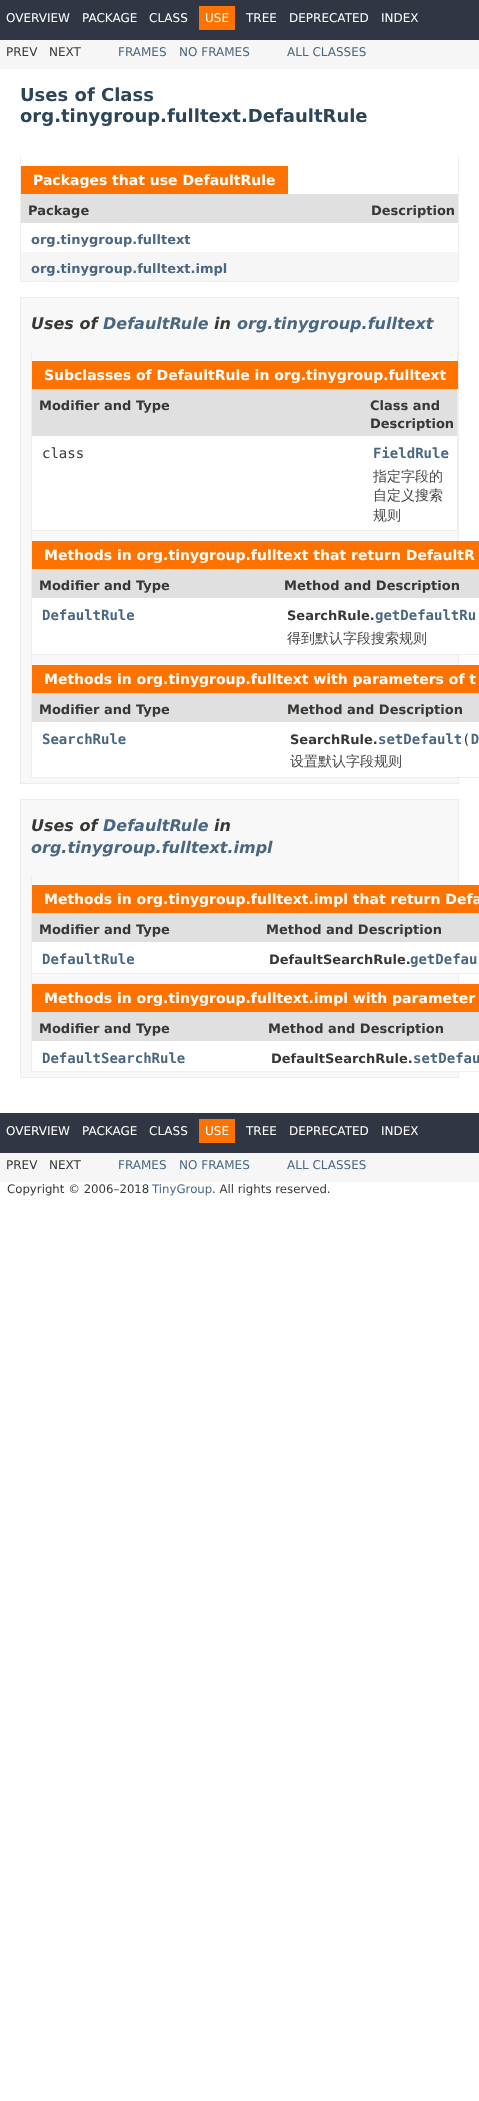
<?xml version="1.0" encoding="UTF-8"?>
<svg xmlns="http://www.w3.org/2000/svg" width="479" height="2101">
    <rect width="100%" height="100%" fill="#FFFFFF"/>
    <rect x="0" y="0" width="479" height="40" fill="#303643"/>
    <text x="6" y="22" font-family="DejaVu Sans" font-size="12" fill="#FFFFFF">OVERVIEW</text>
    <text x="82" y="22" font-family="DejaVu Sans" font-size="12" fill="#FFFFFF">PACKAGE</text>
    <text x="149" y="22" font-family="DejaVu Sans" font-size="12" fill="#FFFFFF">CLASS</text>
    <rect x="199" y="6" width="36" height="24" fill="#FE7300"/>
    <text x="205" y="22" font-family="DejaVu Sans" font-size="12" fill="#FFFFFF">USE</text>
    <text x="246" y="22" font-family="DejaVu Sans" font-size="12" fill="#FFFFFF">TREE</text>
    <text x="289" y="22" font-family="DejaVu Sans" font-size="12" fill="#FFFFFF">DEPRECATED</text>
    <text x="381" y="22" font-family="DejaVu Sans" font-size="12" fill="#FFFFFF">INDEX</text>
    <rect x="0" y="40" width="479" height="29" fill="#F6F6F6"/>
    <text x="6" y="56" font-family="DejaVu Sans" font-size="12" fill="#353833">PREV</text>
    <text x="49" y="56" font-family="DejaVu Sans" font-size="12" fill="#353833">NEXT</text>
    <text x="118" y="56" font-family="DejaVu Sans" font-size="12" fill="#4A6782">FRAMES</text>
    <text x="179" y="56" font-family="DejaVu Sans" font-size="12" fill="#4A6782">NO FRAMES</text>
    <text x="287" y="56" font-family="DejaVu Sans" font-size="12" fill="#4A6782">ALL CLASSES</text>
    <text font-family="DejaVu Sans" font-size="18" font-weight="700" fill="#2C4557">
        <tspan x="20" y="101">Uses of Class</tspan>
        <tspan x="20" y="122">org.tinygroup.fulltext.DefaultRule</tspan>
    </text>
    <rect x="458" y="156" width="1" height="126" fill="#EEEEEE"/>
    <rect x="20" y="281" width="439" height="1" fill="#EEEEEE"/>
    <rect x="20" y="156" width="1" height="126" fill="#EEEEEE"/>
    <rect x="21" y="166" width="267" height="28" fill="#FE7300"/>
    <text x="33" y="185" font-family="DejaVu Sans" font-size="14" font-weight="700" fill="#FFFFFF">Packages that use DefaultRule</text>
    <rect x="21" y="194" width="437" height="29" fill="#E0E0E0"/>
    <text x="28" y="215" font-family="DejaVu Sans" font-size="13" font-weight="700" fill="#353833">Package</text>
    <text x="371" y="215" font-family="DejaVu Sans" font-size="13" font-weight="700" fill="#353833">Description</text>
    <text x="31" y="244" font-family="DejaVu Sans" font-size="13" font-weight="700" fill="#4A6782">org.tinygroup.fulltext</text>
    <rect x="21" y="252" width="437" height="29" fill="#F6F6F6"/>
    <text x="31" y="273" font-family="DejaVu Sans" font-size="13" font-weight="700" fill="#4A6782">org.tinygroup.fulltext.impl</text>
    <rect x="20.5" y="297.5" width="438" height="486" fill="#F8F8F8" stroke="#EDEDED"/>
    <text x="31" y="329" font-family="DejaVu Sans" font-size="16" font-weight="700" font-style="italic" fill="#353833">Uses of</text>
    <text x="103" y="329" font-family="DejaVu Sans" font-size="16" font-weight="700" font-style="italic" fill="#4A6782">DefaultRule</text>
    <text x="214" y="329" font-family="DejaVu Sans" font-size="16" font-weight="700" font-style="italic" fill="#353833">in</text>
    <text x="237" y="329" font-family="DejaVu Sans" font-size="16" font-weight="700" font-style="italic" fill="#4A6782">org.tinygroup.fulltext</text>
    <rect x="457" y="351" width="1" height="180" fill="#EEEEEE"/>
    <rect x="31" y="530" width="427" height="1" fill="#EEEEEE"/>
    <rect x="31" y="351" width="1" height="180" fill="#EEEEEE"/>
    <rect x="32" y="361" width="426" height="28" fill="#FE7300"/>
    <text x="44" y="380" font-family="DejaVu Sans" font-size="14" font-weight="700" fill="#FFFFFF">Subclasses of DefaultRule in org.tinygroup.fulltext</text>
    <rect x="32" y="389" width="425" height="47" fill="#E0E0E0"/>
    <text x="39" y="410" font-family="DejaVu Sans" font-size="13" font-weight="700" fill="#353833">Modifier and Type</text>
    <text font-family="DejaVu Sans" font-size="13" font-weight="700" fill="#353833">
        <tspan x="370" y="410">Class and</tspan>
        <tspan x="370" y="428">Description</tspan>
    </text>
    <rect x="32" y="436" width="425" height="94" fill="#FFFFFF"/>
    <text x="42" y="458" font-family="DejaVu Sans Mono" font-size="14" fill="#353833">class</text>
    <text x="373" y="458" font-family="DejaVu Sans Mono" font-size="14" font-weight="700" fill="#4A6782">FieldRule</text>
    <text font-family="WenQuanYi Zen Hei" font-size="14" font-weight="500" fill="#474747">
        <tspan x="373" y="481">指定字段的</tspan>
        <tspan x="373" y="500">自定义搜索</tspan>
        <tspan x="373" y="520">规则</tspan>
    </text>
    <rect x="31" y="654" width="448" height="1" fill="#EEEEEE"/>
    <rect x="31" y="531" width="1" height="124" fill="#EEEEEE"/>
    <rect x="32" y="541" width="447" height="28" fill="#FE7300"/>
    <text x="44" y="560" font-family="DejaVu Sans" font-size="14" font-weight="700" fill="#FFFFFF">Methods in org.tinygroup.fulltext that return DefaultR</text>
    <rect x="32" y="569" width="447" height="29" fill="#E0E0E0"/>
    <text x="39" y="590" font-family="DejaVu Sans" font-size="13" font-weight="700" fill="#353833">Modifier and Type</text>
    <text x="284" y="590" font-family="DejaVu Sans" font-size="13" font-weight="700" fill="#353833">Method and Description</text>
    <rect x="32" y="598" width="427" height="56" fill="#FFFFFF"/>
    <text x="42" y="620" font-family="DejaVu Sans Mono" font-size="14" font-weight="700" fill="#4A6782">DefaultRule</text>
    <text x="287" y="620" font-family="DejaVu Sans" font-size="13" font-weight="700" fill="#353833">SearchRule.</text>
    <text x="375" y="620" font-family="DejaVu Sans Mono" font-size="14" font-weight="700" fill="#4A6782">getDefaultRu</text>
    <text x="287" y="643" font-family="WenQuanYi Zen Hei" font-size="14" font-weight="500" fill="#474747">得到默认字段搜索规则</text>
    <rect x="31" y="777" width="448" height="1" fill="#EEEEEE"/>
    <rect x="31" y="655" width="1" height="123" fill="#EEEEEE"/>
    <rect x="32" y="665" width="447" height="28" fill="#FE7300"/>
    <text x="44" y="684" font-family="DejaVu Sans" font-size="14" font-weight="700" fill="#FFFFFF">Methods in org.tinygroup.fulltext with parameters of t</text>
    <rect x="32" y="693" width="447" height="29" fill="#E0E0E0"/>
    <text x="39" y="714" font-family="DejaVu Sans" font-size="13" font-weight="700" fill="#353833">Modifier and Type</text>
    <text x="287" y="714" font-family="DejaVu Sans" font-size="13" font-weight="700" fill="#353833">Method and Description</text>
    <rect x="32" y="722" width="427" height="55" fill="#FFFFFF"/>
    <text x="42" y="744" font-family="DejaVu Sans Mono" font-size="14" font-weight="700" fill="#4A6782">SearchRule</text>
    <text x="378" y="744" font-family="DejaVu Sans Mono" font-size="14" font-weight="700" fill="#4A6782">setDefault D</text>
    <text x="290" y="744" font-family="DejaVu Sans" font-size="13" font-weight="700" fill="#353833">SearchRule.</text>
    <text x="462" y="744" font-family="DejaVu Sans Mono" font-size="14" fill="#353833">(</text>
    <text x="290" y="766" font-family="WenQuanYi Zen Hei" font-size="14" font-weight="500" fill="#474747">设置默认字段规则</text>
    <rect x="20.5" y="799.5" width="438" height="278" fill="#F8F8F8" stroke="#EDEDED"/>
    <text x="31" y="831" font-family="DejaVu Sans" font-size="16" font-weight="700" font-style="italic" fill="#353833">Uses of</text>
    <text x="103" y="831" font-family="DejaVu Sans" font-size="16" font-weight="700" font-style="italic" fill="#4A6782">DefaultRule</text>
    <text x="214" y="831" font-family="DejaVu Sans" font-size="16" font-weight="700" font-style="italic" fill="#353833">in</text>
    <text x="31" y="853" font-family="DejaVu Sans" font-size="16" font-weight="700" font-style="italic" fill="#4A6782">org.tinygroup.fulltext.impl</text>
    <rect x="31" y="973" width="448" height="1" fill="#EEEEEE"/>
    <rect x="31" y="875" width="1" height="99" fill="#EEEEEE"/>
    <rect x="32" y="885" width="447" height="28" fill="#FE7300"/>
    <text x="44" y="904" font-family="DejaVu Sans" font-size="14" font-weight="700" fill="#FFFFFF">Methods in org.tinygroup.fulltext.impl that return Defa</text>
    <rect x="32" y="913" width="447" height="29" fill="#E0E0E0"/>
    <text x="39" y="934" font-family="DejaVu Sans" font-size="13" font-weight="700" fill="#353833">Modifier and Type</text>
    <text x="266" y="934" font-family="DejaVu Sans" font-size="13" font-weight="700" fill="#353833">Method and Description</text>
    <rect x="32" y="942" width="427" height="31" fill="#FFFFFF"/>
    <text x="42" y="964" font-family="DejaVu Sans Mono" font-size="14" font-weight="700" fill="#4A6782">DefaultRule</text>
    <text x="269" y="964" font-family="DejaVu Sans" font-size="13" font-weight="700" fill="#353833">DefaultSearchRule.</text>
    <text x="410" y="964" font-family="DejaVu Sans Mono" font-size="14" font-weight="700" fill="#4A6782">getDefau</text>
    <rect x="31" y="1071" width="448" height="1" fill="#EEEEEE"/>
    <rect x="31" y="974" width="1" height="98" fill="#EEEEEE"/>
    <rect x="32" y="984" width="447" height="28" fill="#FE7300"/>
    <text x="44" y="1003" font-family="DejaVu Sans" font-size="14" font-weight="700" fill="#FFFFFF">Methods in org.tinygroup.fulltext.impl with parameter</text>
    <rect x="32" y="1012" width="447" height="29" fill="#E0E0E0"/>
    <text x="39" y="1033" font-family="DejaVu Sans" font-size="13" font-weight="700" fill="#353833">Modifier and Type</text>
    <text x="268" y="1033" font-family="DejaVu Sans" font-size="13" font-weight="700" fill="#353833">Method and Description</text>
    <rect x="32" y="1041" width="427" height="30" fill="#FFFFFF"/>
    <text x="42" y="1063" font-family="DejaVu Sans Mono" font-size="14" font-weight="700" fill="#4A6782">DefaultSearchRule</text>
    <text x="271" y="1063" font-family="DejaVu Sans" font-size="13" font-weight="700" fill="#353833">DefaultSearchRule.</text>
    <text x="413" y="1063" font-family="DejaVu Sans Mono" font-size="14" font-weight="700" fill="#4A6782">setDefau</text>
    <rect x="0" y="1113" width="479" height="40" fill="#303643"/>
    <text x="6" y="1135" font-family="DejaVu Sans" font-size="12" fill="#FFFFFF">OVERVIEW</text>
    <text x="82" y="1135" font-family="DejaVu Sans" font-size="12" fill="#FFFFFF">PACKAGE</text>
    <text x="149" y="1135" font-family="DejaVu Sans" font-size="12" fill="#FFFFFF">CLASS</text>
    <rect x="199" y="1119" width="36" height="24" fill="#FE7300"/>
    <text x="205" y="1135" font-family="DejaVu Sans" font-size="12" fill="#FFFFFF">USE</text>
    <text x="246" y="1135" font-family="DejaVu Sans" font-size="12" fill="#FFFFFF">TREE</text>
    <text x="289" y="1135" font-family="DejaVu Sans" font-size="12" fill="#FFFFFF">DEPRECATED</text>
    <text x="381" y="1135" font-family="DejaVu Sans" font-size="12" fill="#FFFFFF">INDEX</text>
    <rect x="0" y="1153" width="479" height="29" fill="#F6F6F6"/>
    <text x="6" y="1169" font-family="DejaVu Sans" font-size="12" fill="#353833">PREV</text>
    <text x="49" y="1169" font-family="DejaVu Sans" font-size="12" fill="#353833">NEXT</text>
    <text x="118" y="1169" font-family="DejaVu Sans" font-size="12" fill="#4A6782">FRAMES</text>
    <text x="179" y="1169" font-family="DejaVu Sans" font-size="12" fill="#4A6782">NO FRAMES</text>
    <text x="287" y="1169" font-family="DejaVu Sans" font-size="12" fill="#4A6782">ALL CLASSES</text>
    <text x="7" y="1193" font-family="DejaVu Sans" font-size="11.75" fill="#353833">Copyright © 2006–2018</text>
    <text x="152" y="1193" font-family="DejaVu Sans" font-size="11.75" fill="#4A6782">TinyGroup</text>
    <text x="212" y="1193" font-family="DejaVu Sans" font-size="11.75" fill="#353833">. All rights reserved.</text>
</svg>
